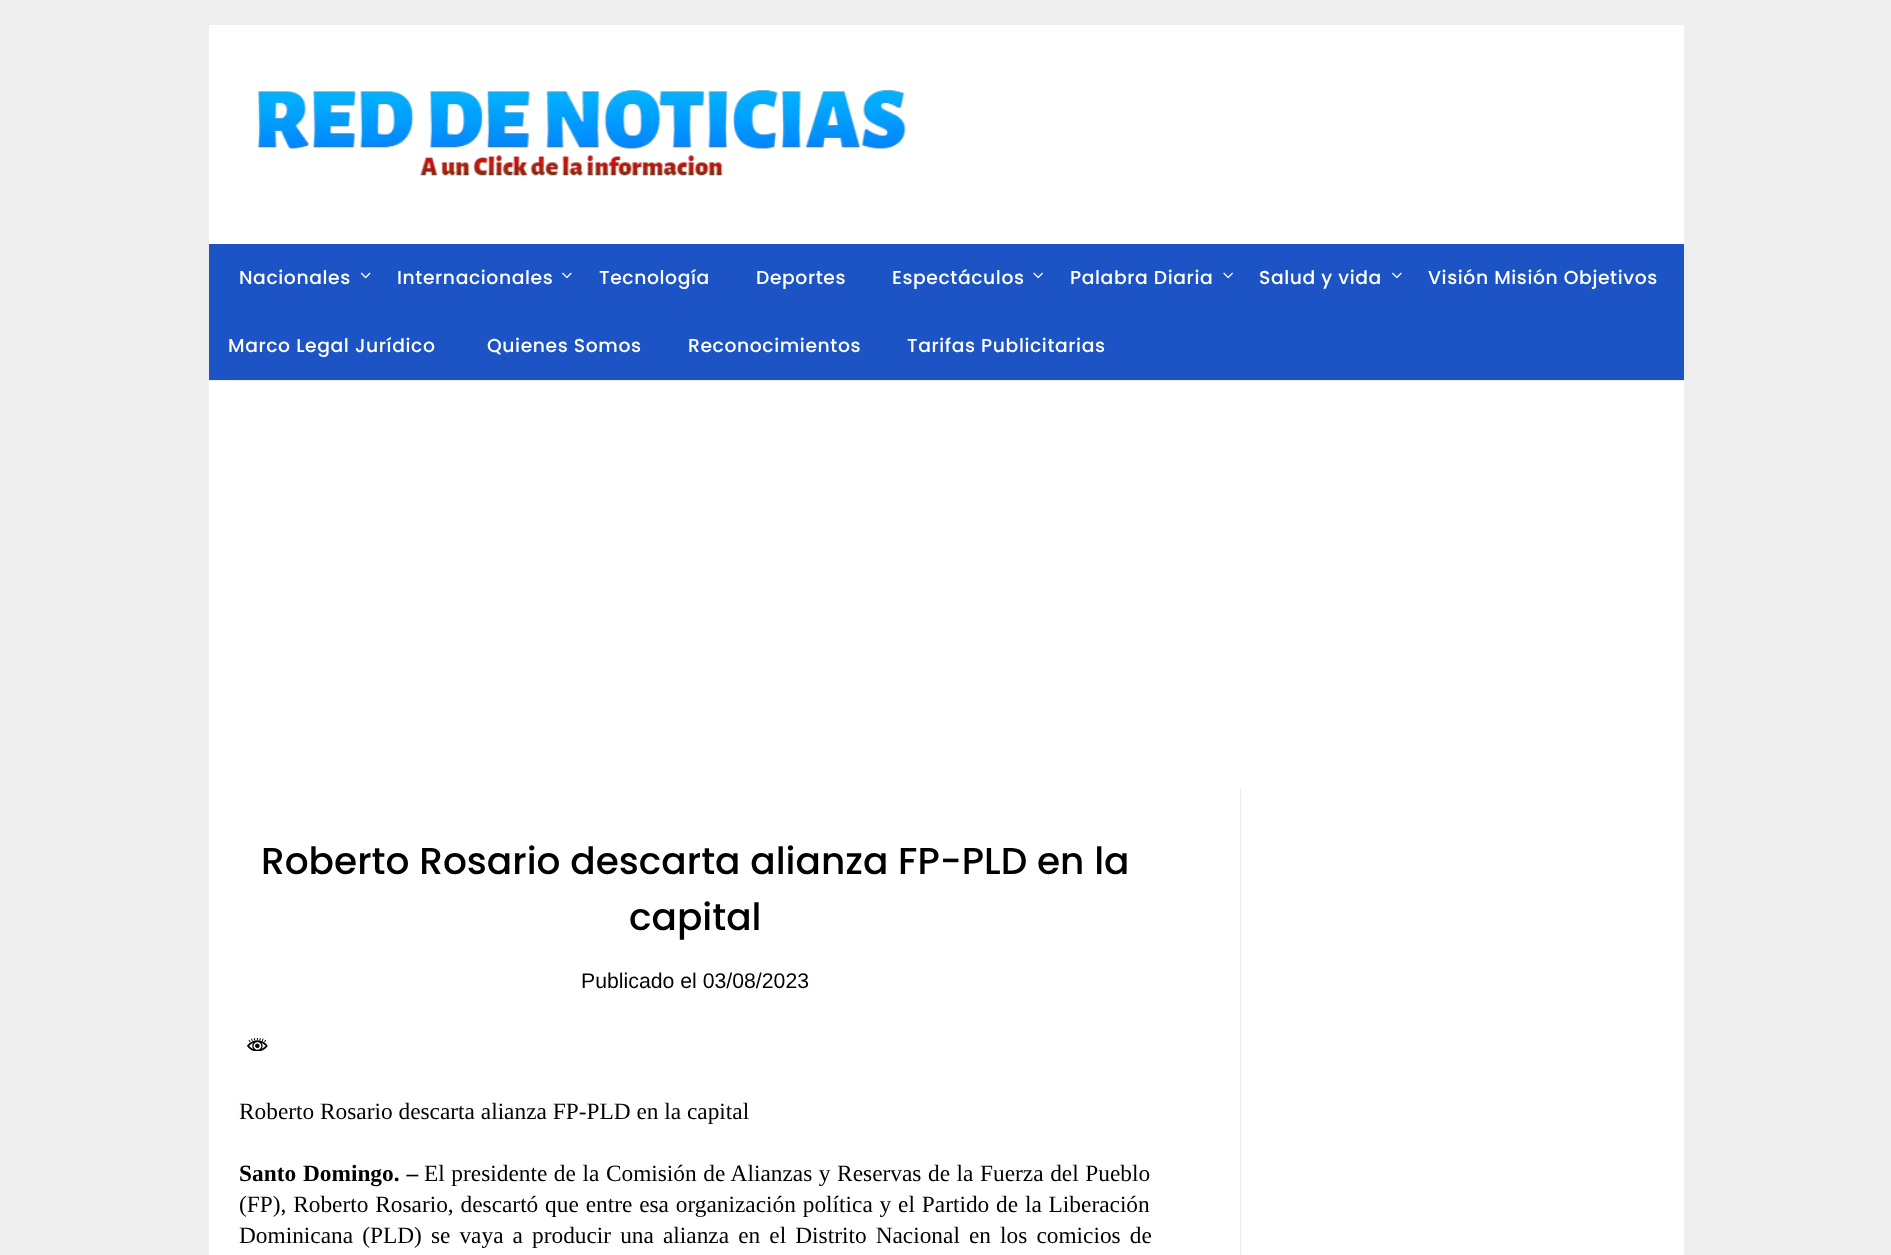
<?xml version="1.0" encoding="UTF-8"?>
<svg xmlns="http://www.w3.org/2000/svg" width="1891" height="1255">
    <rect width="100%" height="100%" fill="#EEEEEE"/>
    <rect x="209" y="25" width="1475" height="219" fill="#FFFFFF"/>
    <image x="257" y="90" width="649" height="87" href="img_01.png"/>
    <rect x="209" y="244" width="1475" height="136" fill="#1C53C5"/>
    <text x="239" y="284" font-family="Poppins" font-size="18.75" font-weight="500" letter-spacing="0.6" fill="#FFFFFF">Nacionales</text>
    <image x="360" y="272" width="11" height="7" href="img_02.png"/>
    <text x="397" y="284" font-family="Poppins" font-size="18.75" font-weight="500" letter-spacing="0.6" fill="#FFFFFF">Internacionales</text>
    <image x="562" y="272" width="10" height="7" href="img_03.png"/>
    <text x="599" y="284" font-family="Poppins" font-size="18.75" font-weight="500" letter-spacing="0.6" fill="#FFFFFF">Tecnología</text>
    <text x="756" y="284" font-family="Poppins" font-size="18.75" font-weight="500" letter-spacing="0.6" fill="#FFFFFF">Deportes</text>
    <text x="892" y="284" font-family="Poppins" font-size="18.75" font-weight="500" letter-spacing="0.6" fill="#FFFFFF">Espectáculos</text>
    <image x="1033" y="272" width="10" height="7" href="img_04.png"/>
    <text x="1070" y="284" font-family="Poppins" font-size="18.75" font-weight="500" letter-spacing="0.6" fill="#FFFFFF">Palabra Diaria</text>
    <image x="1223" y="272" width="10" height="7" href="img_04.png"/>
    <text x="1259" y="284" font-family="Poppins" font-size="18.75" font-weight="500" letter-spacing="0.6" fill="#FFFFFF">Salud y vida</text>
    <image x="1392" y="272" width="10" height="7" href="img_03.png"/>
    <text x="1428" y="284" font-family="Poppins" font-size="18.75" font-weight="500" letter-spacing="0.6" fill="#FFFFFF">Visión Misión Objetivos</text>
    <text x="228" y="352" font-family="Poppins" font-size="18.75" font-weight="500" letter-spacing="0.6" fill="#FFFFFF">Marco Legal Jurídico</text>
    <text x="487" y="352" font-family="Poppins" font-size="18.75" font-weight="500" letter-spacing="0.6" fill="#FFFFFF">Quienes Somos</text>
    <text x="688" y="352" font-family="Poppins" font-size="18.75" font-weight="500" letter-spacing="0.6" fill="#FFFFFF">Reconocimientos</text>
    <text x="907" y="352" font-family="Poppins" font-size="18.75" font-weight="500" letter-spacing="0.6" fill="#FFFFFF">Tarifas Publicitarias</text>
    <rect x="209" y="381" width="1475" height="874" fill="#FFFFFF"/>
    <text x="261" y="874" font-family="Poppins" font-size="37.5" font-weight="500" fill="#000000">Roberto Rosario descarta alianza FP-PLD en la</text>
    <text x="629" y="930" font-family="Poppins" font-size="37.5" font-weight="500" fill="#000000">capital</text>
    <text x="581" y="988" font-family="Liberation Sans" font-size="21.25" fill="#000000">Publicado el 03/08/2023</text>
    <image x="247" y="1038" width="21" height="13" href="img_05.png"/>
    <text x="239" y="1119" font-family="Liberation Serif" font-size="23.35" fill="#000000">Roberto Rosario descarta alianza FP-PLD en la capital</text>
    <text x="239" y="1181" word-spacing="1" font-family="Liberation Serif" font-size="23.35" font-weight="700" fill="#000000">Santo Domingo. –</text>
    <text x="424" y="1181" word-spacing="0.75" font-family="Liberation Serif" font-size="23.35" fill="#000000">El presidente de la Comisión de Alianzas y Reservas de la Fuerza del Pueblo</text>
    <text font-family="Liberation Serif" font-size="23.35" fill="#000000">
        <tspan x="239" y="1212" word-spacing="1">(FP), Roberto Rosario, descartó que entre esa organización política y el Partido de la Liberación</tspan>
        <tspan x="239" y="1243" word-spacing="3.25">Dominicana (PLD) se vaya a producir una alianza en el Distrito Nacional en los comicios de</tspan>
    </text>
    <rect x="1240" y="788" width="1" height="467" fill="#ECECEC"/>
</svg>
